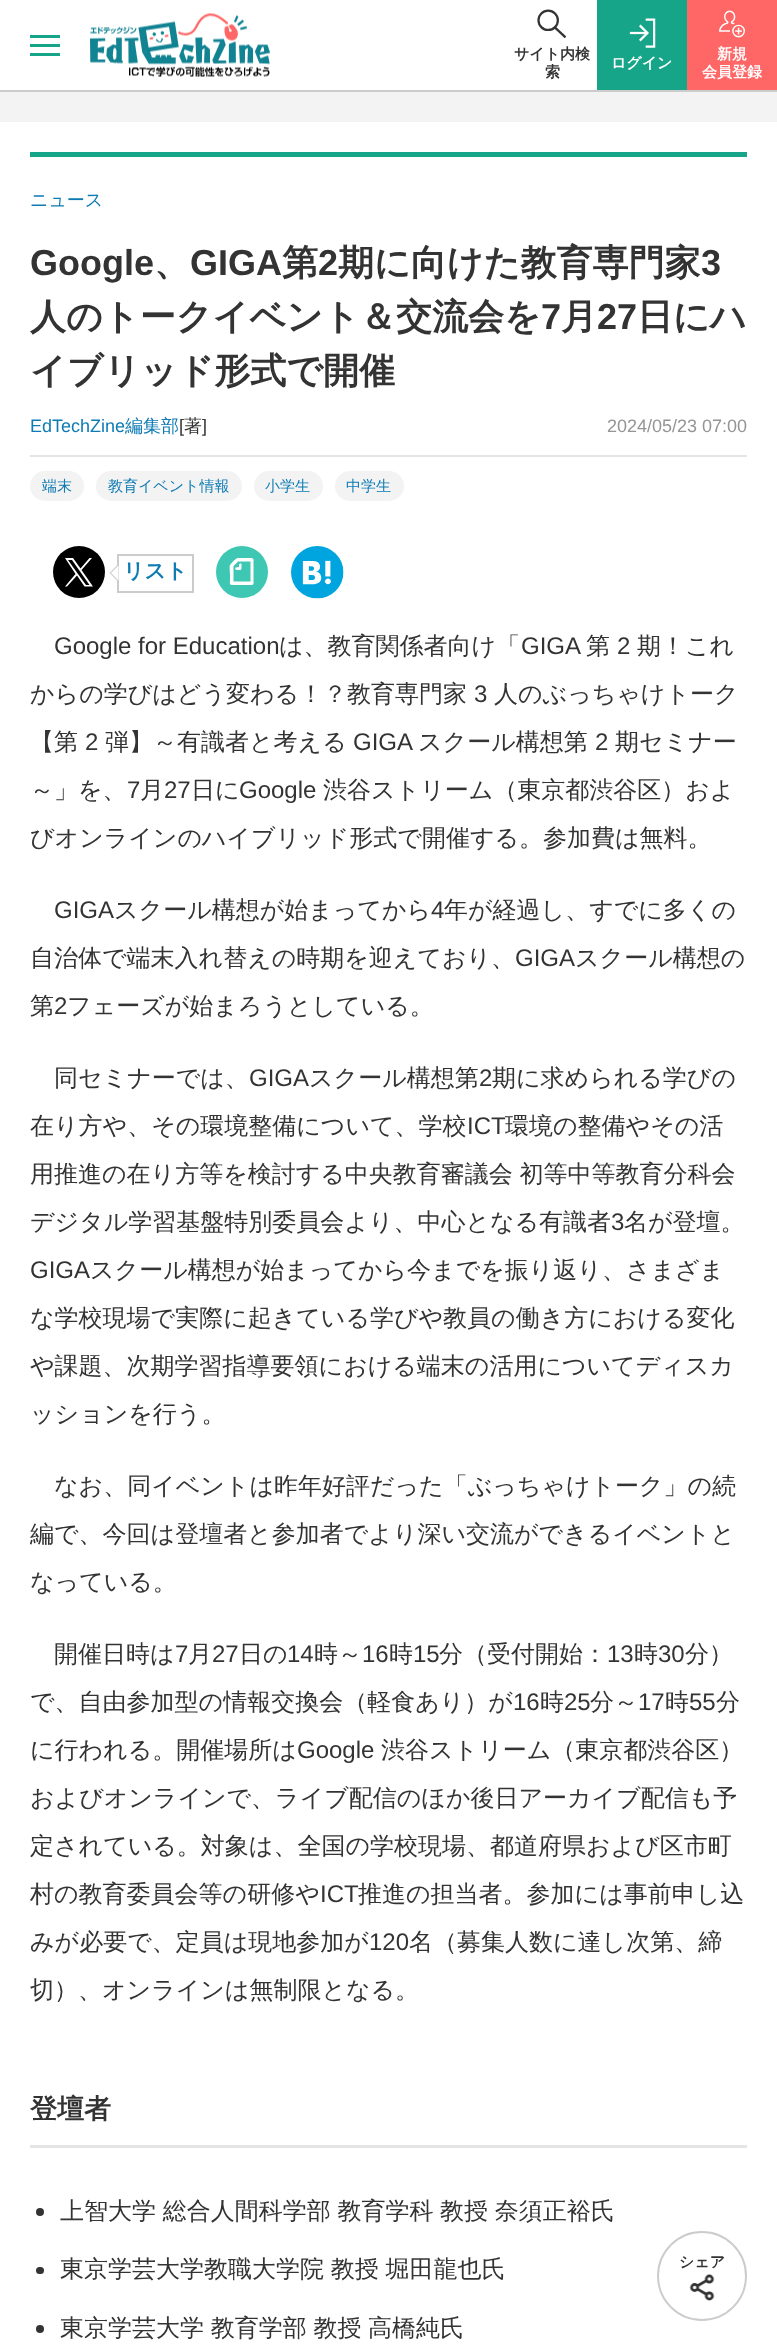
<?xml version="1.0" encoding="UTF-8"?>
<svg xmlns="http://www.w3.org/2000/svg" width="777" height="2350">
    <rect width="100%" height="100%" fill="#FFFFFF"/>
    <rect x="0" y="90" width="777" height="2" fill="#CCCCCC"/>
    <rect x="30" y="44" width="30" height="3" fill="#16A588"/>
    <rect x="30" y="35" width="30" height="3" fill="#16A588"/>
    <rect x="30" y="53" width="30" height="3" fill="#16A588"/>
    <image x="90" y="13" width="180" height="64" href="img_01.png"/>
    <image x="537" y="9" width="30" height="30" href="img_02.png"/>
    <text x="514" y="59" font-family="WenQuanYi Zen Hei" font-size="15" font-weight="700" fill="#333333">サイト内検</text>
    <text x="545" y="77" font-family="WenQuanYi Zen Hei" font-size="15" font-weight="700" fill="#333333">索</text>
    <rect x="597" y="0" width="90" height="90" fill="#16A588"/>
    <image x="629" y="18" width="27" height="30" href="img_03.png"/>
    <text x="611" y="68" font-family="WenQuanYi Zen Hei" font-size="15" font-weight="700" fill="#FFFFFF">ログイン</text>
    <rect x="687" y="0" width="90" height="90" fill="#FF6666"/>
    <image x="719" y="10" width="26" height="28" href="img_04.png"/>
    <text x="717" y="59" font-family="WenQuanYi Zen Hei" font-size="15" font-weight="700" fill="#FFFFFF">新規</text>
    <text x="702" y="77" font-family="WenQuanYi Zen Hei" font-size="15" font-weight="700" fill="#FFFFFF">会員登録</text>
    <rect x="0" y="92" width="777" height="30" fill="#F3F3F3"/>
    <rect x="30" y="152" width="717" height="5" fill="#16A588"/>
    <text x="30" y="206" font-family="WenQuanYi Zen Hei" font-size="18" font-weight="500" fill="#0E7BB3">ニュース</text>
    <text x="30" y="275" font-family="Liberation Sans" font-size="36" font-weight="700" fill="#333333">Google</text>
    <text x="154" y="275" font-family="WenQuanYi Zen Hei" font-size="36" font-weight="700" fill="#333333">、</text>
    <text x="190" y="275" font-family="Liberation Sans" font-size="36" font-weight="700" fill="#333333">GIGA</text>
    <text x="282" y="275" font-family="WenQuanYi Zen Hei" font-size="36" font-weight="700" fill="#333333">第</text>
    <text x="318" y="275" font-family="Liberation Sans" font-size="36" font-weight="700" fill="#333333">2</text>
    <text x="338" y="275" font-family="WenQuanYi Zen Hei" font-size="36" font-weight="700" fill="#333333">期に向けた教育専門家</text>
    <text x="701" y="275" font-family="Liberation Sans" font-size="36" font-weight="700" fill="#333333">3</text>
    <text x="30" y="329" font-family="WenQuanYi Zen Hei" font-size="36" font-weight="700" fill="#333333">人のトークイベント＆交流会を</text>
    <text x="541" y="329" font-family="Liberation Sans" font-size="36" font-weight="700" fill="#333333">7</text>
    <text x="561" y="329" font-family="WenQuanYi Zen Hei" font-size="36" font-weight="700" fill="#333333">月</text>
    <text x="597" y="329" font-family="Liberation Sans" font-size="36" font-weight="700" fill="#333333">27</text>
    <text x="637" y="329" font-family="WenQuanYi Zen Hei" font-size="36" font-weight="700" fill="#333333">日にハ</text>
    <text x="30" y="383" font-family="WenQuanYi Zen Hei" font-size="36" font-weight="700" fill="#333333">イブリッド形式で開催</text>
    <text x="30" y="432" font-family="Liberation Sans" font-size="18" fill="#0E7BB3">EdTechZine</text>
    <text x="125" y="432" font-family="WenQuanYi Zen Hei" font-size="18" font-weight="500" fill="#0E7BB3">編集部</text>
    <text x="179" y="432" font-family="Liberation Sans" font-size="18" fill="#333333">[</text>
    <text x="184" y="432" font-family="WenQuanYi Zen Hei" font-size="18" font-weight="500" fill="#333333">著</text>
    <text x="202" y="432" font-family="Liberation Sans" font-size="18" fill="#333333">]</text>
    <text x="607" y="432" font-family="Liberation Sans" font-size="18" fill="#959595">2024/05/23 07:00</text>
    <rect x="30" y="455" width="717" height="2" fill="#E5E5E5"/>
    <rect x="30" y="471" width="54" height="30" rx="15" fill="#F3F3F3"/>
    <text x="42" y="491" font-family="WenQuanYi Zen Hei" font-size="15" font-weight="500" fill="#0E7BB3">端末</text>
    <rect x="96" y="471" width="146" height="30" rx="15" fill="#F3F3F3"/>
    <text x="108" y="491" font-family="WenQuanYi Zen Hei" font-size="15" font-weight="500" fill="#0E7BB3">教育イベント情報</text>
    <rect x="254" y="471" width="69" height="30" rx="15" fill="#F3F3F3"/>
    <text x="265" y="491" font-family="WenQuanYi Zen Hei" font-size="15" font-weight="500" fill="#0E7BB3">小学生</text>
    <rect x="335" y="471" width="69" height="30" rx="15" fill="#F3F3F3"/>
    <text x="346" y="491" font-family="WenQuanYi Zen Hei" font-size="15" font-weight="500" fill="#0E7BB3">中学生</text>
    <circle cx="79" cy="572" r="26" fill="#000000"/>
    <path d="M 81.5 570 L 92 558 H 89.5 L 80.5 568.5 L 73 558 H 65 L 75.5 574 L 65 586.5 H 67 L 77 575.5 L 84.5 586.5 H 93 Z M 78 574 L 68 560 H 72 L 89.5 585 H 86 Z" fill="#FFFFFF"/>
    <rect x="118" y="555" width="75" height="37" fill="none" stroke="#CCCCCC" stroke-width="2"/>
    <path d="M 118.5 564 V 582 L 109.5 573 Z" fill="#CCCCCC"/>
    <text x="123" y="578" font-family="WenQuanYi Zen Hei" font-size="21" font-weight="700" fill="#0E7BB3">リスト</text>
    <path d="M 118.5 565.5 V 580.5 L 111 573 Z" fill="#FFFFFF"/>
    <circle cx="242" cy="572" r="26" fill="#3EC8B3"/>
    <path d="M 232 585 H 248.5 C 254.5 585 253.5 585 253.5 579.5 V 564 C 253.5 559 254.5 558 249.5 558 H 238 C 236 558 235.5 559.5 234 560.5 C 228 566.5 230 565 230 574.5 V 580.5 C 230 582 229 585 232 585 Z M 238 561.5 H 250.5 V 581.5 H 233.5 V 566 Z M 237 570 C 241.5 570 241.5 570.5 241.5 566 V 564 C 241 563 239.5 563.5 239 564.5 V 567 L 236 567.5 C 234.5 568 235.5 570 237 570 Z" fill="#FFFFFF" fill-rule="evenodd"/>
    <image x="291" y="546" width="53" height="53" href="img_05.png"/>
    <text x="54" y="654" font-family="Liberation Sans" font-size="24" fill="#333333">Google for Education</text>
    <text x="279" y="654" font-family="WenQuanYi Zen Hei" font-size="24" font-weight="500" fill="#333333">は、教育関係者向け「</text>
    <text x="521" y="654" font-family="Liberation Sans" font-size="24" fill="#333333">GIGA</text>
    <text x="586" y="654" font-family="WenQuanYi Zen Hei" font-size="24" font-weight="500" fill="#333333">第</text>
    <text x="617" y="654" font-family="Liberation Sans" font-size="24" fill="#333333">2</text>
    <text x="637" y="654" font-family="WenQuanYi Zen Hei" font-size="24" font-weight="500" fill="#333333">期！これ</text>
    <text x="30" y="702" font-family="WenQuanYi Zen Hei" font-size="24" font-weight="500" fill="#333333">からの学びはどう変わる！？教育専門家</text>
    <text x="474" y="702" font-family="Liberation Sans" font-size="24" fill="#333333">3</text>
    <text x="494" y="702" font-family="WenQuanYi Zen Hei" font-size="24" font-weight="500" fill="#333333">人のぶっちゃけトーク</text>
    <text x="30" y="750" font-family="WenQuanYi Zen Hei" font-size="24" font-weight="500" fill="#333333">【第</text>
    <text x="85" y="750" font-family="Liberation Sans" font-size="24" fill="#333333">2</text>
    <text x="105" y="750" font-family="WenQuanYi Zen Hei" font-size="24" font-weight="500" fill="#333333">弾】～有識者と考える</text>
    <text x="353" y="750" font-family="Liberation Sans" font-size="24" fill="#333333">GIGA</text>
    <text x="418" y="750" font-family="WenQuanYi Zen Hei" font-size="24" font-weight="500" fill="#333333">スクール構想第</text>
    <text x="595" y="750" font-family="Liberation Sans" font-size="24" fill="#333333">2</text>
    <text x="615" y="750" font-family="WenQuanYi Zen Hei" font-size="24" font-weight="500" fill="#333333">期セミナー</text>
    <text x="30" y="798" font-family="WenQuanYi Zen Hei" font-size="24" font-weight="500" fill="#333333">～」を、</text>
    <text x="127" y="798" font-family="Liberation Sans" font-size="24" fill="#333333">7</text>
    <text x="140" y="798" font-family="WenQuanYi Zen Hei" font-size="24" font-weight="500" fill="#333333">月</text>
    <text x="164" y="798" font-family="Liberation Sans" font-size="24" fill="#333333">27</text>
    <text x="191" y="798" font-family="WenQuanYi Zen Hei" font-size="24" font-weight="500" fill="#333333">日に</text>
    <text x="239" y="798" font-family="Liberation Sans" font-size="24" fill="#333333">Google</text>
    <text x="323" y="798" font-family="WenQuanYi Zen Hei" font-size="24" font-weight="500" fill="#333333">渋谷ストリーム（東京都渋谷区）およ</text>
    <text x="30" y="846" font-family="WenQuanYi Zen Hei" font-size="24" font-weight="500" fill="#333333">びオンラインのハイブリッド形式で開催する。参加費は無料。</text>
    <text x="54" y="918" font-family="Liberation Sans" font-size="24" fill="#333333">GIGA</text>
    <text x="114" y="918" font-family="WenQuanYi Zen Hei" font-size="24" font-weight="500" fill="#333333">スクール構想が始まってから</text>
    <text x="431" y="918" font-family="Liberation Sans" font-size="24" fill="#333333">4</text>
    <text x="444" y="918" font-family="WenQuanYi Zen Hei" font-size="24" font-weight="500" fill="#333333">年が経過し、すでに多くの</text>
    <text x="30" y="966" font-family="WenQuanYi Zen Hei" font-size="24" font-weight="500" fill="#333333">自治体で端末入れ替えの時期を迎えており、</text>
    <text x="515" y="966" font-family="Liberation Sans" font-size="24" fill="#333333">GIGA</text>
    <text x="575" y="966" font-family="WenQuanYi Zen Hei" font-size="24" font-weight="500" fill="#333333">スクール構想の</text>
    <text x="30" y="1014" font-family="WenQuanYi Zen Hei" font-size="24" font-weight="500" fill="#333333">第</text>
    <text x="54" y="1014" font-family="Liberation Sans" font-size="24" fill="#333333">2</text>
    <text x="67" y="1014" font-family="WenQuanYi Zen Hei" font-size="24" font-weight="500" fill="#333333">フェーズが始まろうとしている。</text>
    <text x="54" y="1086" font-family="WenQuanYi Zen Hei" font-size="24" font-weight="500" fill="#333333">同セミナーでは、</text>
    <text x="249" y="1086" font-family="Liberation Sans" font-size="24" fill="#333333">GIGA</text>
    <text x="309" y="1086" font-family="WenQuanYi Zen Hei" font-size="24" font-weight="500" fill="#333333">スクール構想第</text>
    <text x="479" y="1086" font-family="Liberation Sans" font-size="24" fill="#333333">2</text>
    <text x="492" y="1086" font-family="WenQuanYi Zen Hei" font-size="24" font-weight="500" fill="#333333">期に求められる学びの</text>
    <text x="30" y="1134" font-family="WenQuanYi Zen Hei" font-size="24" font-weight="500" fill="#333333">在り方や、その環境整備について、学校</text>
    <text x="467" y="1134" font-family="Liberation Sans" font-size="24" fill="#333333">ICT</text>
    <text x="505" y="1134" font-family="WenQuanYi Zen Hei" font-size="24" font-weight="500" fill="#333333">環境の整備やその活</text>
    <text x="30" y="1182" word-spacing="-0.5" font-family="WenQuanYi Zen Hei" font-size="24" font-weight="500" fill="#333333">用推進の在り方等を検討する中央教育審議会 初等中等教育分科会</text>
    <text x="30" y="1230" font-family="WenQuanYi Zen Hei" font-size="24" font-weight="500" fill="#333333">デジタル学習基盤特別委員会より、中心となる有識者</text>
    <text x="611" y="1230" font-family="Liberation Sans" font-size="24" fill="#333333">3</text>
    <text x="624" y="1230" font-family="WenQuanYi Zen Hei" font-size="24" font-weight="500" fill="#333333">名が登壇。</text>
    <text x="30" y="1278" font-family="Liberation Sans" font-size="24" fill="#333333">GIGA</text>
    <text x="90" y="1278" font-family="WenQuanYi Zen Hei" font-size="24" font-weight="500" fill="#333333">スクール構想が始まってから今までを振り返り、さまざま</text>
    <text x="30" y="1326" font-family="WenQuanYi Zen Hei" font-size="24" font-weight="500" fill="#333333">な学校現場で実際に起きている学びや教員の働き方における変化</text>
    <text x="30" y="1374" font-family="WenQuanYi Zen Hei" font-size="24" font-weight="500" fill="#333333">や課題、次期学習指導要領における端末の活用についてディスカ</text>
    <text x="30" y="1422" font-family="WenQuanYi Zen Hei" font-size="24" font-weight="500" fill="#333333">ッションを行う。</text>
    <text x="54" y="1494" font-family="WenQuanYi Zen Hei" font-size="24" font-weight="500" fill="#333333">なお、同イベントは昨年好評だった「ぶっちゃけトーク」の続</text>
    <text x="30" y="1542" font-family="WenQuanYi Zen Hei" font-size="24" font-weight="500" fill="#333333">編で、今回は登壇者と参加者でより深い交流ができるイベントと</text>
    <text x="30" y="1590" font-family="WenQuanYi Zen Hei" font-size="24" font-weight="500" fill="#333333">なっている。</text>
    <text x="54" y="1662" font-family="WenQuanYi Zen Hei" font-size="24" font-weight="500" fill="#333333">開催日時は</text>
    <text x="175" y="1662" font-family="Liberation Sans" font-size="24" fill="#333333">7</text>
    <text x="188" y="1662" font-family="WenQuanYi Zen Hei" font-size="24" font-weight="500" fill="#333333">月</text>
    <text x="212" y="1662" font-family="Liberation Sans" font-size="24" fill="#333333">27</text>
    <text x="239" y="1662" font-family="WenQuanYi Zen Hei" font-size="24" font-weight="500" fill="#333333">日の</text>
    <text x="287" y="1662" font-family="Liberation Sans" font-size="24" fill="#333333">14</text>
    <text x="314" y="1662" font-family="WenQuanYi Zen Hei" font-size="24" font-weight="500" fill="#333333">時～</text>
    <text x="362" y="1662" font-family="Liberation Sans" font-size="24" fill="#333333">16</text>
    <text x="389" y="1662" font-family="WenQuanYi Zen Hei" font-size="24" font-weight="500" fill="#333333">時</text>
    <text x="413" y="1662" font-family="Liberation Sans" font-size="24" fill="#333333">15</text>
    <text x="439" y="1662" font-family="WenQuanYi Zen Hei" font-size="24" font-weight="500" fill="#333333">分（受付開始：</text>
    <text x="607" y="1662" font-family="Liberation Sans" font-size="24" fill="#333333">13</text>
    <text x="634" y="1662" font-family="WenQuanYi Zen Hei" font-size="24" font-weight="500" fill="#333333">時</text>
    <text x="658" y="1662" font-family="Liberation Sans" font-size="24" fill="#333333">30</text>
    <text x="685" y="1662" font-family="WenQuanYi Zen Hei" font-size="24" font-weight="500" fill="#333333">分）</text>
    <text x="30" y="1710" font-family="WenQuanYi Zen Hei" font-size="24" font-weight="500" fill="#333333">で、自由参加型の情報交換会（軽食あり）が</text>
    <text x="513" y="1710" font-family="Liberation Sans" font-size="24" fill="#333333">16</text>
    <text x="540" y="1710" font-family="WenQuanYi Zen Hei" font-size="24" font-weight="500" fill="#333333">時</text>
    <text x="564" y="1710" font-family="Liberation Sans" font-size="24" fill="#333333">25</text>
    <text x="590" y="1710" font-family="WenQuanYi Zen Hei" font-size="24" font-weight="500" fill="#333333">分～</text>
    <text x="638" y="1710" font-family="Liberation Sans" font-size="24" fill="#333333">17</text>
    <text x="665" y="1710" font-family="WenQuanYi Zen Hei" font-size="24" font-weight="500" fill="#333333">時</text>
    <text x="689" y="1710" font-family="Liberation Sans" font-size="24" fill="#333333">55</text>
    <text x="716" y="1710" font-family="WenQuanYi Zen Hei" font-size="24" font-weight="500" fill="#333333">分</text>
    <text x="30" y="1758" font-family="WenQuanYi Zen Hei" font-size="24" font-weight="500" fill="#333333">に行われる。開催場所は</text>
    <text x="297" y="1758" font-family="Liberation Sans" font-size="24" fill="#333333">Google</text>
    <text x="381" y="1758" font-family="WenQuanYi Zen Hei" font-size="24" font-weight="500" fill="#333333">渋谷ストリーム（東京都渋谷区）</text>
    <text x="30" y="1806" font-family="WenQuanYi Zen Hei" font-size="24" font-weight="500" fill="#333333">およびオンラインで、ライブ配信のほか後日アーカイブ配信も予</text>
    <text x="30" y="1854" font-family="WenQuanYi Zen Hei" font-size="24" font-weight="500" fill="#333333">定されている。対象は、全国の学校現場、都道府県および区市町</text>
    <text x="30" y="1902" font-family="WenQuanYi Zen Hei" font-size="24" font-weight="500" fill="#333333">村の教育委員会等の研修や</text>
    <text x="320" y="1902" font-family="Liberation Sans" font-size="24" fill="#333333">ICT</text>
    <text x="358" y="1902" font-family="WenQuanYi Zen Hei" font-size="24" font-weight="500" fill="#333333">推進の担当者。参加には事前申し込</text>
    <text x="30" y="1950" font-family="WenQuanYi Zen Hei" font-size="24" font-weight="500" fill="#333333">みが必要で、定員は現地参加が</text>
    <text x="369" y="1950" font-family="Liberation Sans" font-size="24" fill="#333333">120</text>
    <text x="409" y="1950" font-family="WenQuanYi Zen Hei" font-size="24" font-weight="500" fill="#333333">名（募集人数に達し次第、締</text>
    <text x="30" y="1998" font-family="WenQuanYi Zen Hei" font-size="24" font-weight="500" fill="#333333">切）、オンラインは無制限となる。</text>
    <rect x="30" y="2145" width="717" height="3" fill="#E5E5E5"/>
    <text x="30" y="2118" font-family="WenQuanYi Zen Hei" font-size="27" font-weight="700" fill="#333333">登壇者</text>
    <circle cx="40" cy="2212" r="4" fill="#333333"/>
    <text x="60" y="2219" word-spacing="-0.5" font-family="WenQuanYi Zen Hei" font-size="24" font-weight="500" fill="#333333">上智大学 総合人間科学部 教育学科 教授 奈須正裕氏</text>
    <rect x="36" y="2267" width="8" height="7" rx="3.5" fill="#333333"/>
    <text x="60" y="2277" word-spacing="-0.5" font-family="WenQuanYi Zen Hei" font-size="24" font-weight="500" fill="#333333">東京学芸大学教職大学院 教授 堀田龍也氏</text>
    <circle cx="40" cy="2329" r="4" fill="#333333"/>
    <text x="60" y="2336" word-spacing="-0.5" font-family="WenQuanYi Zen Hei" font-size="24" font-weight="500" fill="#333333">東京学芸大学 教育学部 教授 高橋純氏</text>
    <circle cx="702" cy="2276" r="44" fill="none" stroke="#CCCCCC" stroke-width="2"/>
    <text x="679" y="2267" font-family="WenQuanYi Zen Hei" font-size="15" font-weight="700" fill="#333333">シェア</text>
    <image x="689" y="2274" width="26" height="27" href="img_06.png"/>
</svg>
